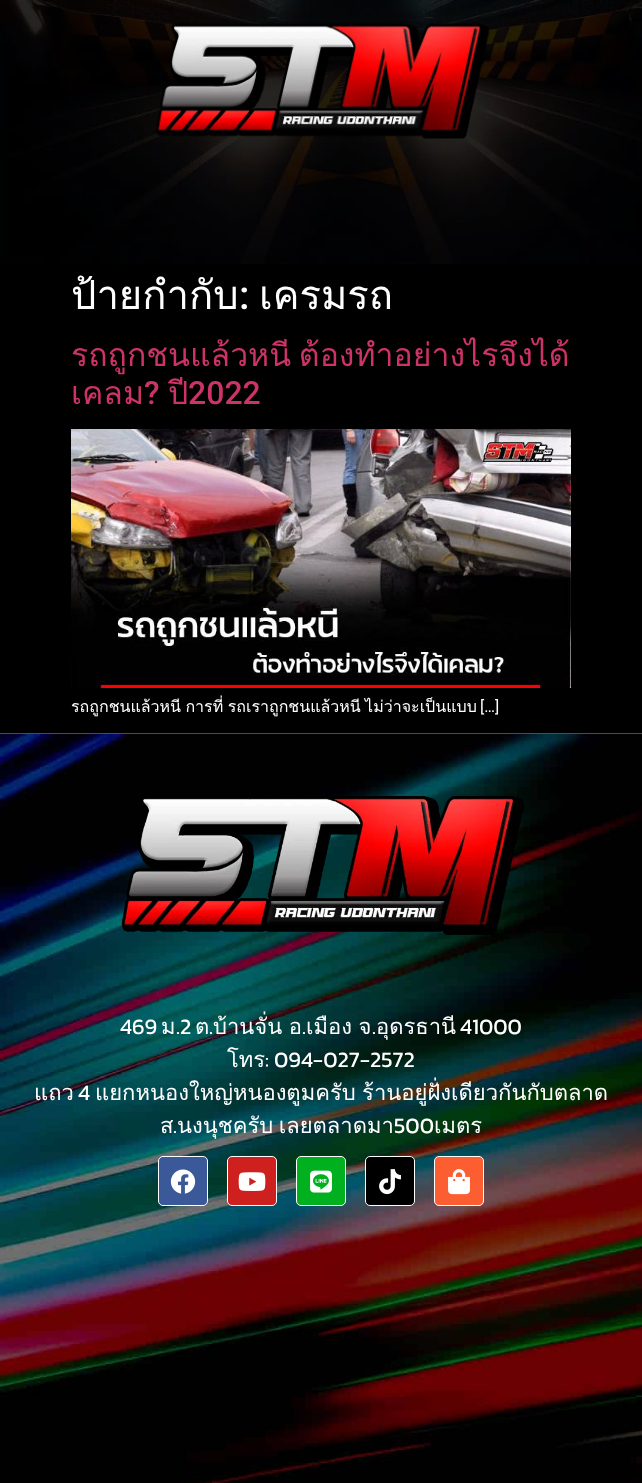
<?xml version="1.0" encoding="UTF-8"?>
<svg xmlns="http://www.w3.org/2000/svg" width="642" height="1483">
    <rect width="100%" height="100%" fill="#000000"/>
    <image x="0" y="0" width="642" height="264" href="img_01.png"/>
    <image x="156" y="23" width="334" height="116" href="img_02.png"/>
    <text x="71" y="309" font-family="Loma" font-size="40" fill="#FFFFFF">ป้ายกำกับ</text>
    <text x="239" y="309" font-family="Roboto" font-size="40" font-weight="500" fill="#FFFFFF">:</text>
    <text x="259" y="309" font-family="Loma" font-size="40" fill="#FFFFFF">เครมรถ</text>
    <text font-family="Loma" font-size="32" fill="#CC3366">
        <tspan x="71" y="366" word-spacing="-3">รถถูกชนแล้วหนี ต้องทำอย่างไรจึงได้</tspan>
        <tspan x="71" y="404">เคลม</tspan>
    </text>
    <text x="144" y="404" font-family="Roboto" font-size="32" font-weight="500" fill="#CC3366">?</text>
    <text x="168" y="404" font-family="Loma" font-size="32" fill="#CC3366">ปี</text>
    <text x="188" y="404" font-family="Roboto" font-size="32" font-weight="500" fill="#CC3366">2022</text>
    <image x="71" y="429" width="500" height="259" href="img_03.png"/>
    <text x="71" y="712" word-spacing="-1" font-family="Loma" font-size="16" fill="#FFFFFF">รถถูกชนแล้วหนี การที่ รถเราถูกชนแล้วหนี ไม่ว่าจะเป็นแบบ</text>
    <text x="480" y="712" font-family="Roboto" font-size="16" fill="#FFFFFF">[…]</text>
    <rect x="0" y="733" width="642" height="1" fill="#FF0000"/>
    <image x="0" y="734" width="642" height="749" href="img_04.png"/>
    <image x="121" y="796" width="403" height="139" href="img_05.png"/>
    <text x="120" y="1034" font-family="Kanit" font-size="22" fill="#FFFFFF">469</text>
    <text x="161" y="1034" font-family="Loma" font-size="22" fill="#FFFFFF">ม</text>
    <text x="176" y="1034" font-family="Kanit" font-size="22" fill="#FFFFFF">.2</text>
    <text x="195" y="1034" font-family="Loma" font-size="22" fill="#FFFFFF">ต</text>
    <text x="209" y="1034" font-family="Kanit" font-size="22" fill="#FFFFFF">.</text>
    <text x="213" y="1034" word-spacing="-1" font-family="Loma" font-size="22" fill="#FFFFFF">บ้านจั่น อ</text>
    <text x="302" y="1034" font-family="Kanit" font-size="22" fill="#FFFFFF">.</text>
    <text x="306" y="1034" word-spacing="-1" font-family="Loma" font-size="22" fill="#FFFFFF">เมือง จ</text>
    <text x="372" y="1034" font-family="Kanit" font-size="22" fill="#FFFFFF">.</text>
    <text x="376" y="1034" font-family="Loma" font-size="22" fill="#FFFFFF">อุดรธานี</text>
    <text x="460" y="1034" font-family="Kanit" font-size="22" fill="#FFFFFF">41000</text>
    <text x="227" y="1067" font-family="Loma" font-size="22" fill="#FFFFFF">โทร</text>
    <text x="265" y="1067" font-family="Kanit" font-size="22" fill="#FFFFFF">: 094-027-2572</text>
    <text x="34" y="1100" font-family="Loma" font-size="22" fill="#FFFFFF">แถว</text>
    <text x="78" y="1100" font-family="Kanit" font-size="22" fill="#FFFFFF">4</text>
    <text x="95" y="1100" word-spacing="-1" font-family="Loma" font-size="22" fill="#FFFFFF">แยกหนองใหญ่หนองตูมครับ ร้านอยู่ฝั่งเดียวกันกับตลาด</text>
    <text x="160" y="1133" font-family="Loma" font-size="22" fill="#FFFFFF">ส</text>
    <text x="173" y="1133" font-family="Kanit" font-size="22" fill="#FFFFFF">.</text>
    <text x="177" y="1133" word-spacing="-2" font-family="Loma" font-size="22" fill="#FFFFFF">นงนุชครับ เลยตลาดมา</text>
    <text x="394" y="1133" font-family="Kanit" font-size="22" fill="#FFFFFF">500</text>
    <text x="434" y="1133" font-family="Loma" font-size="22" fill="#FFFFFF">เมตร</text>
    <rect x="158.5" y="1156.5" width="49" height="49" rx="4.5" fill="#3B5998" stroke="#FFFFFF"/>
    <image x="170" y="1169" width="26" height="25" href="img_06.png"/>
    <rect x="227.5" y="1156.5" width="49" height="49" rx="4.5" fill="#CD201F" stroke="#FFFFFF"/>
    <image x="238" y="1172" width="28" height="19" href="img_07.png"/>
    <rect x="296.5" y="1156.5" width="49" height="49" rx="4.5" fill="#00B01F" stroke="#FFFFFF"/>
    <image x="310" y="1170" width="22" height="23" href="img_08.png"/>
    <rect x="365.5" y="1156.5" width="49" height="49" rx="4.5" fill="#000000" stroke="#FFFFFF"/>
    <image x="379" y="1169" width="22" height="26" href="img_09.png"/>
    <rect x="434.5" y="1156.5" width="49" height="49" rx="4.5" fill="#FC5D31" stroke="#FFFFFF"/>
    <image x="448" y="1169" width="22" height="26" href="img_10.png"/>
</svg>
